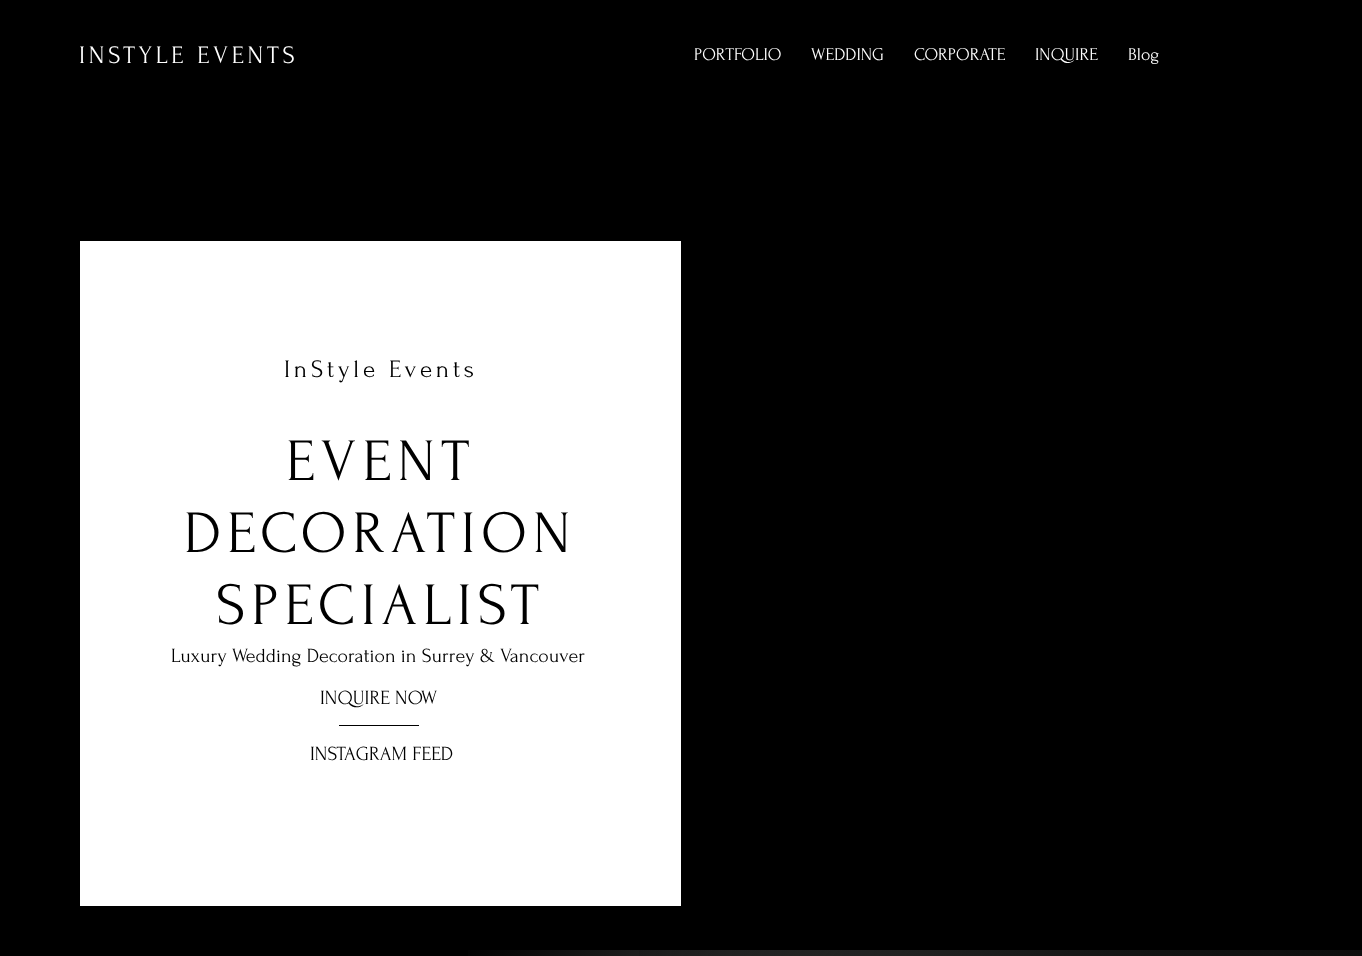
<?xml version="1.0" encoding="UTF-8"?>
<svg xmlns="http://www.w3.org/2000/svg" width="1362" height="956">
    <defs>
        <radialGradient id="g1" gradientUnits="userSpaceOnUse" cx="988" cy="1156" r="1633"><stop offset="0" stop-color="#636362"/><stop offset="0.35" stop-color="#000000"/></radialGradient>
        <radialGradient id="g2" gradientUnits="userSpaceOnUse" cx="1146" cy="1169" r="1724"><stop offset="0" stop-color="#000000"/><stop offset="0.35" stop-color="#000000" stop-opacity="0"/></radialGradient>
    </defs>
    <rect width="100%" height="100%" fill="#000000"/>
    <text x="79" y="63" font-family="Forum" font-size="25" letter-spacing="3.75" fill="#FFFFFF">INSTYLE EVENTS</text>
    <text x="694" y="60" font-family="Forum" font-size="18" fill="#FFFFFF">PORTFOLIO</text>
    <text x="811" y="60" font-family="Forum" font-size="18" fill="#FFFFFF">WEDDING</text>
    <text x="914" y="60" font-family="Forum" font-size="18" fill="#FFFFFF">CORPORATE</text>
    <text x="1035" y="60" font-family="Forum" font-size="18" fill="#FFFFFF">INQUIRE</text>
    <text x="1128" y="60" font-family="Forum" font-size="18" fill="#FFFFFF">Blog</text>
    <rect x="80" y="241" width="601" height="665" fill="#FFFFFF"/>
    <text x="284" y="377" font-family="Forum" font-size="25" letter-spacing="3.75" fill="#000000">InStyle Events</text>
    <text x="286" y="480" font-family="Forum" font-size="60" letter-spacing="6" fill="#000000">EVENT</text>
    <text x="184" y="552" font-family="Forum" font-size="60" letter-spacing="6" fill="#000000">DECORATION</text>
    <text x="216" y="624" font-family="Forum" font-size="60" letter-spacing="6" fill="#000000">SPECIALIST</text>
    <text x="171" y="662" font-family="Forum" font-size="20" fill="#000000">Luxury Wedding Decoration in Surrey &amp; Vancouver</text>
    <text x="320" y="704" font-family="Forum" font-size="20" fill="#000000">INQUIRE NOW</text>
    <rect x="339" y="725" width="80" height="1" fill="#000000"/>
    <text x="310" y="760" font-family="Forum" font-size="20" fill="#000000">INSTAGRAM FEED</text>
    <rect x="468" y="950" width="894" height="6" fill="url(#g1)"/>
    <rect x="639" y="950" width="723" height="6" fill="url(#g2)"/>
</svg>
